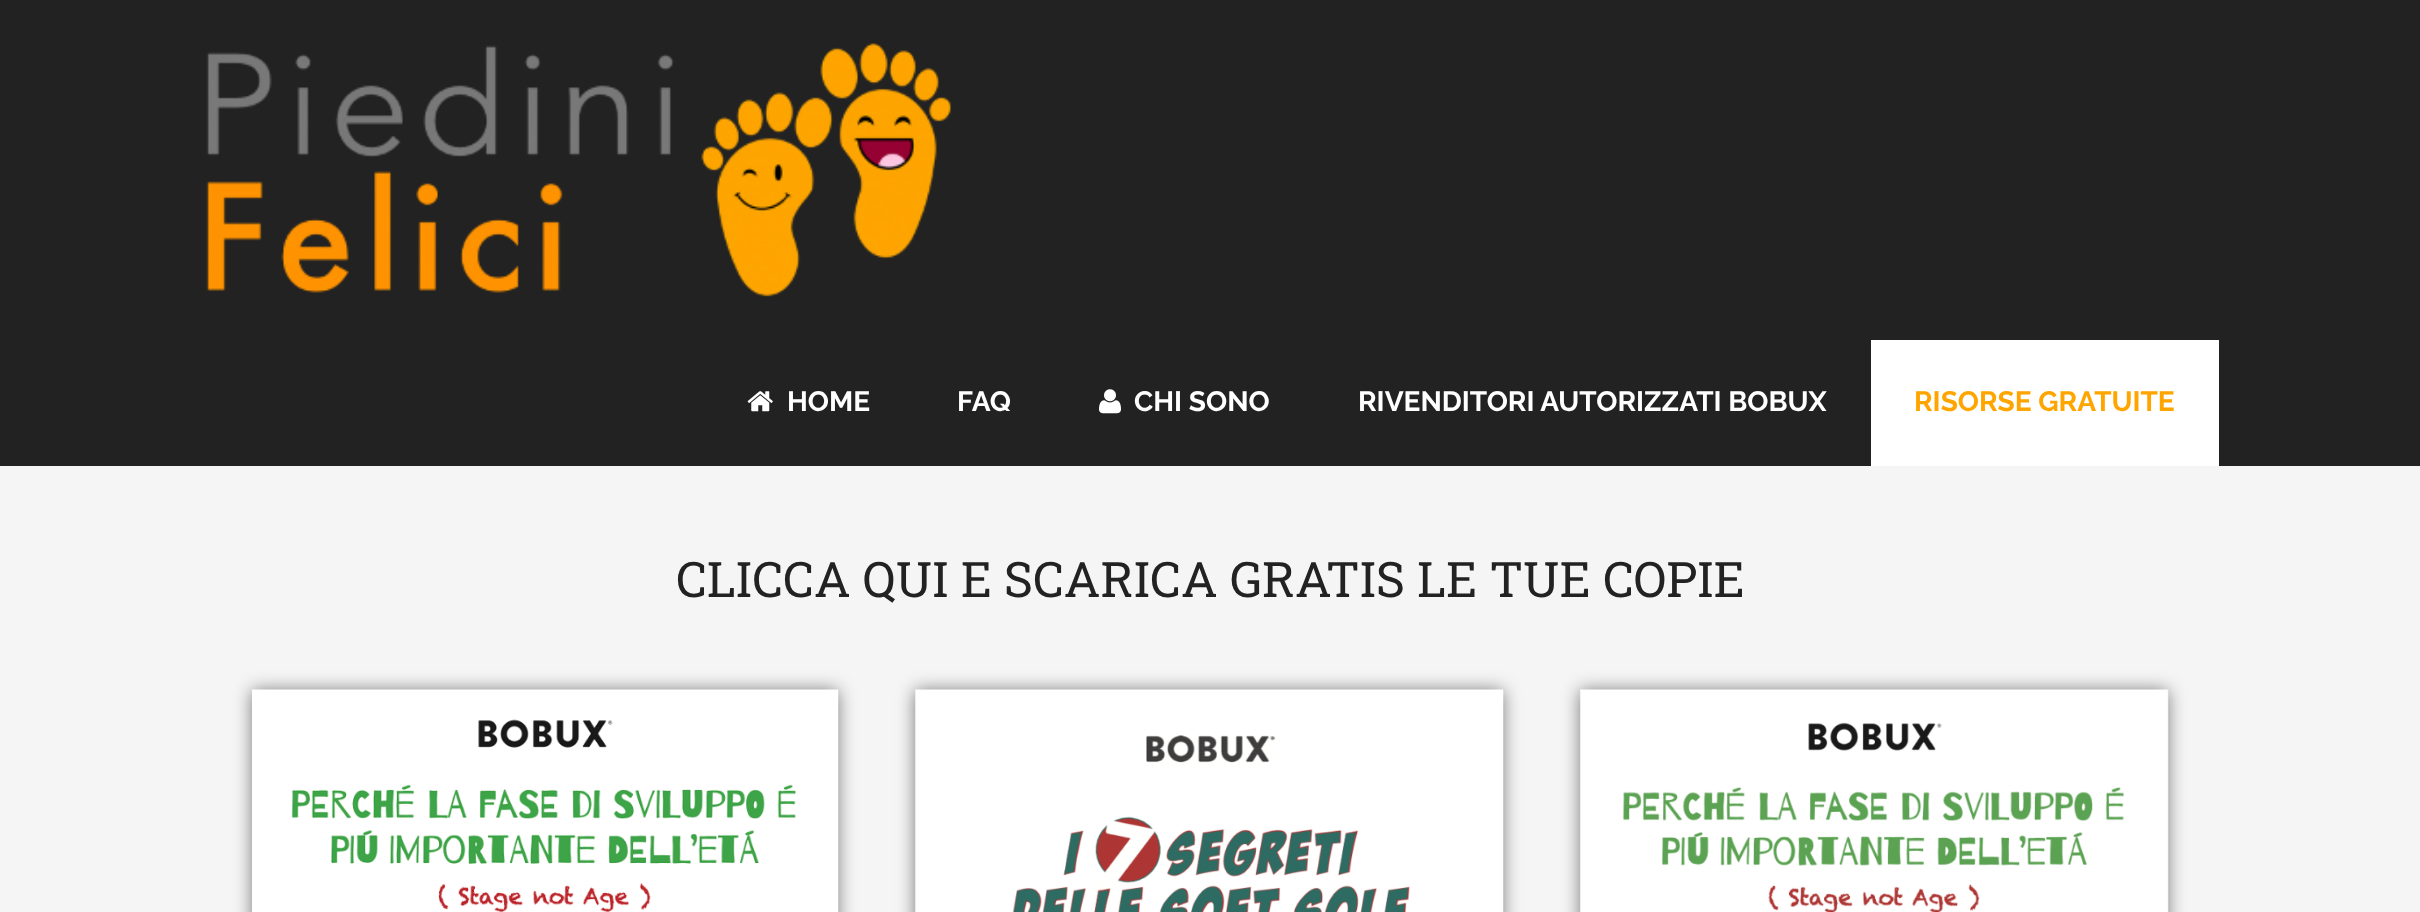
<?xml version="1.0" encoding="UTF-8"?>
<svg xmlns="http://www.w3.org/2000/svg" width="2420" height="912">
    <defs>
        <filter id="blur1" x="-50%" y="-200%" width="200%" height="500%"><feGaussianBlur stdDeviation="9"/></filter>
    </defs>
    <rect width="100%" height="100%" fill="#F5F5F5"/>
    <rect x="0" y="0" width="2420" height="466" fill="#222222"/>
    <image x="206" y="43" width="746" height="254" href="img_01.png"/>
    <image x="747" y="391" width="26" height="21" href="img_02.png"/>
    <text x="787" y="411" font-family="Raleway" font-size="28" font-weight="700" fill="#FFFFFF">HOME</text>
    <text x="957" y="411" font-family="Raleway" font-size="28" font-weight="700" fill="#FFFFFF">FAQ</text>
    <image x="1099" y="389" width="22" height="25" href="img_03.png"/>
    <text x="1134" y="411" font-family="Raleway" font-size="28" font-weight="700" fill="#FFFFFF">CHI SONO</text>
    <text x="1358" y="411" font-family="Raleway" font-size="28" font-weight="700" fill="#FFFFFF">RIVENDITORI AUTORIZZATI BOBUX</text>
    <rect x="1871" y="340" width="348" height="126" fill="#FFFFFF"/>
    <text x="1914" y="411" font-family="Raleway" font-size="28" font-weight="700" fill="#FFA500">RISORSE GRATUITE</text>
    <text x="676" y="597" font-family="Roboto Slab" font-size="49" fill="#222222">CLICCA QUI E SCARICA GRATIS LE TUE COPIE</text>
    <rect x="252" y="690" width="586" height="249" fill="#000000" fill-opacity="0.5" filter="url(#blur1)"/>
    <image x="252" y="689" width="587" height="223" href="img_04.png"/>
    <rect x="915" y="690" width="588" height="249" fill="#000000" fill-opacity="0.5" filter="url(#blur1)"/>
    <image x="915" y="689" width="589" height="223" href="img_05.png"/>
    <rect x="1580" y="690" width="588" height="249" fill="#000000" fill-opacity="0.5" filter="url(#blur1)"/>
    <image x="1580" y="689" width="589" height="223" href="img_06.png"/>
</svg>
